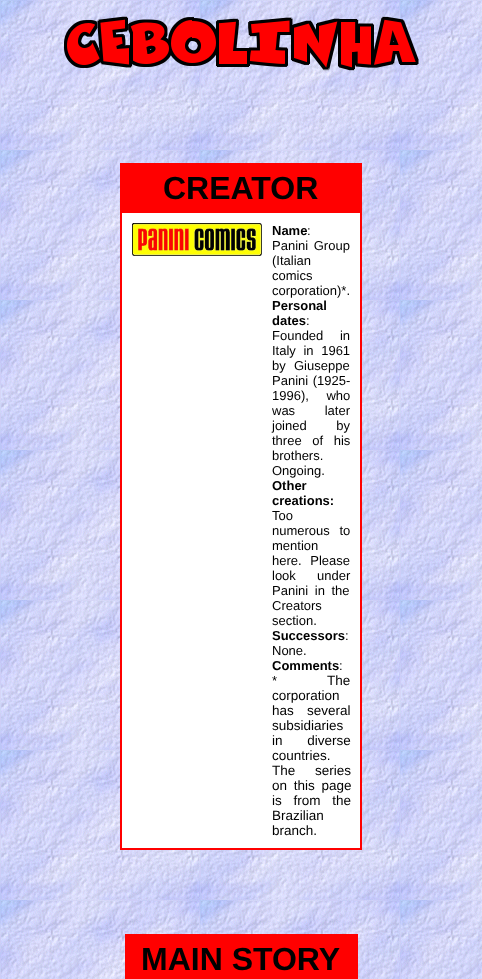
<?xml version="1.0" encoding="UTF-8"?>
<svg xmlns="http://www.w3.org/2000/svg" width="482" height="979">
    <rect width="100%" height="100%" fill="#FFFFFF"/>
    <image x="0" y="0" width="482" height="979" href="img_01.png"/>
    <image x="64" y="16" width="355" height="55" href="img_02.png"/>
    <rect x="120" y="163" width="242" height="2" fill="#FF0000"/>
    <rect x="120" y="212" width="242" height="1" fill="#FF0000"/>
    <rect x="360" y="163" width="2" height="687" fill="#FF0000"/>
    <rect x="120" y="848" width="242" height="2" fill="#FF0000"/>
    <rect x="120" y="163" width="2" height="687" fill="#FF0000"/>
    <rect x="122" y="165" width="238" height="47" fill="#FF0000"/>
    <text x="163" y="199" font-family="Liberation Sans" font-size="32" font-weight="700" fill="#000000">CREATOR</text>
    <rect x="122" y="213" width="238" height="635" fill="#FFFFFF"/>
    <image x="132" y="223" width="130" height="33" href="img_03.png"/>
    <text x="272" y="235" font-family="Liberation Sans" font-size="13" font-weight="700" fill="#000000">Name</text>
    <text x="307" y="235" font-family="Liberation Sans" font-size="13" fill="#000000">:</text>
    <text font-family="Liberation Sans" font-size="13" fill="#000000">
        <tspan x="272" y="250" word-spacing="2">Panini Group</tspan>
        <tspan x="272" y="265">(Italian</tspan>
        <tspan x="272" y="280">comics</tspan>
        <tspan x="272" y="295">corporation)*.</tspan>
    </text>
    <text font-family="Liberation Sans" font-size="13" font-weight="700" fill="#000000">
        <tspan x="272" y="310">Personal</tspan>
        <tspan x="272" y="325">dates</tspan>
    </text>
    <text x="306" y="325" font-family="Liberation Sans" font-size="13" fill="#000000">:</text>
    <text font-family="Liberation Sans" font-size="13" fill="#000000">
        <tspan x="272" y="340" word-spacing="13">Founded in</tspan>
        <tspan x="272" y="355" word-spacing="4">Italy in 1961</tspan>
        <tspan x="272" y="370">by</tspan>
    </text>
    <text x="294" y="370" font-family="Liberation Sans" font-size="13" fill="#000000">Giuseppe</text>
    <text font-family="Liberation Sans" font-size="13" fill="#000000">
        <tspan x="272" y="385" word-spacing="1">Panini (1925-</tspan>
        <tspan x="272" y="400" word-spacing="14">1996), who</tspan>
        <tspan x="272" y="415" word-spacing="26">was later</tspan>
        <tspan x="272" y="430" word-spacing="26">joined by</tspan>
        <tspan x="272" y="445" word-spacing="7">three of his</tspan>
        <tspan x="272" y="460">brothers.</tspan>
        <tspan x="272" y="475">Ongoing.</tspan>
    </text>
    <text font-family="Liberation Sans" font-size="13" font-weight="700" fill="#000000">
        <tspan x="272" y="490">Other</tspan>
        <tspan x="272" y="505">creations:</tspan>
    </text>
    <text font-family="Liberation Sans" font-size="13" fill="#000000">
        <tspan x="272" y="520">Too</tspan>
        <tspan x="272" y="535" word-spacing="6">numerous to</tspan>
        <tspan x="272" y="550">mention</tspan>
        <tspan x="272" y="565" word-spacing="5">here. Please</tspan>
        <tspan x="272" y="580">look</tspan>
    </text>
    <text x="317" y="580" font-family="Liberation Sans" font-size="13" fill="#000000">under</text>
    <text font-family="Liberation Sans" font-size="13" fill="#000000">
        <tspan x="272" y="595" word-spacing="3">Panini in the</tspan>
        <tspan x="272" y="610">Creators</tspan>
        <tspan x="272" y="625">section.</tspan>
    </text>
    <text x="272" y="640" font-family="Liberation Sans" font-size="13" font-weight="700" fill="#000000">Successors</text>
    <text x="345" y="640" font-family="Liberation Sans" font-size="13" fill="#000000">:</text>
    <text x="272" y="655" font-family="Liberation Sans" font-size="13" fill="#000000">None.</text>
    <text x="272" y="670" font-family="Liberation Sans" font-size="13" font-weight="700" fill="#000000">Comments</text>
    <text x="339" y="670" font-family="Liberation Sans" font-size="13" fill="#000000">:</text>
    <text x="272" y="685" font-family="Liberation Sans" font-size="13" fill="#000000">*</text>
    <text x="327" y="685" font-family="Liberation Sans" font-size="13.5" fill="#000000">The</text>
    <text font-family="Liberation Sans" font-size="13.5" fill="#000000">
        <tspan x="272" y="700">corporation</tspan>
        <tspan x="272" y="715">has</tspan>
    </text>
    <text x="307" y="715" font-family="Liberation Sans" font-size="13.5" fill="#000000">several</text>
    <text font-family="Liberation Sans" font-size="13.5" fill="#000000">
        <tspan x="272" y="730">subsidiaries</tspan>
        <tspan x="272" y="745" word-spacing="21">in diverse</tspan>
        <tspan x="272" y="760">countries.</tspan>
        <tspan x="272" y="775" word-spacing="16">The series</tspan>
        <tspan x="272" y="790" word-spacing="3">on this page</tspan>
        <tspan x="272" y="805" word-spacing="8">is from the</tspan>
        <tspan x="272" y="820">Brazilian</tspan>
        <tspan x="272" y="835">branch.</tspan>
    </text>
    <rect x="125" y="935" width="1" height="44" fill="#FF0000"/>
    <rect x="125" y="934" width="233" height="2" fill="#FF0000"/>
    <rect x="356" y="934" width="2" height="45" fill="#FF0000"/>
    <rect x="126" y="936" width="230" height="43" fill="#FF0000"/>
    <text x="141" y="970" font-family="Liberation Sans" font-size="32" font-weight="700" fill="#000000">MAIN STORY</text>
</svg>
